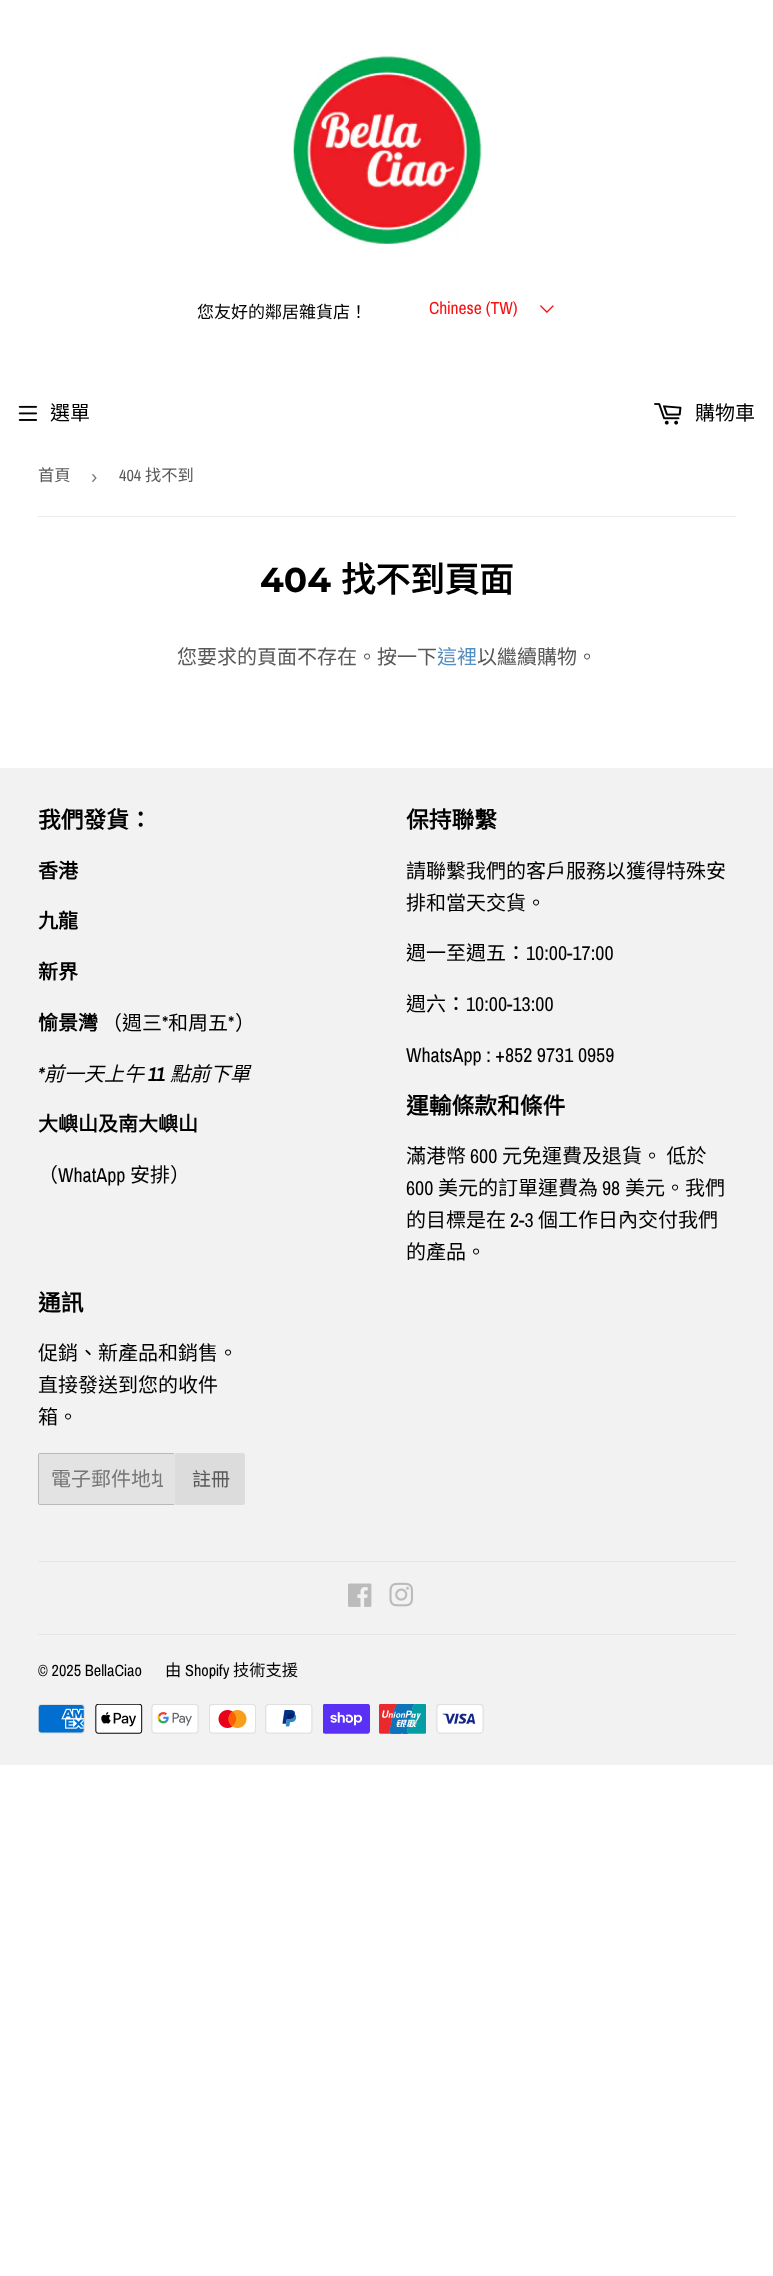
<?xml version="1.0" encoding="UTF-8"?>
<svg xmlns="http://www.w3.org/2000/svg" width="773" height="2276">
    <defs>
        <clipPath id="clip1"><rect x="51" y="1463" width="112" height="30"/></clipPath>
    </defs>
    <rect width="100%" height="100%" fill="#FFFFFF"/>
    <image x="293" y="56" width="189" height="188" href="img_01.png"/>
    <text x="197" y="318" font-family="Noto Sans CJK TC" font-size="17" fill="#000000">您友好的鄰居雜貨店！</text>
    <text x="429" y="314" font-family="Archivo Narrow" font-size="17.5" fill="#FA1010">Chinese (TW)</text>
    <image x="540" y="305" width="14" height="8" href="img_02.png"/>
    <image x="18" y="405" width="20" height="16" href="img_03.png"/>
    <text x="50" y="420" font-family="Noto Sans CJK TC" font-size="20" fill="#000000">選單</text>
    <image x="654" y="403" width="28" height="22" href="img_04.png"/>
    <text x="695" y="420" font-family="Noto Sans CJK TC" font-size="20" fill="#000000">購物車</text>
    <rect x="38" y="516" width="698" height="1" fill="#ECECEC"/>
    <text x="38" y="481" font-family="Noto Sans CJK TC" font-size="16.25" fill="#585858">首頁</text>
    <text x="91" y="483" font-family="Liberation Sans" font-size="19" fill="#767676">›</text>
    <text x="119" y="481" font-family="Archivo Narrow" font-size="16.25" fill="#585858">404</text>
    <text x="145" y="481" font-family="Noto Sans CJK TC" font-size="16.25" fill="#585858">找不到</text>
    <text x="260" y="592" font-family="Montserrat" font-size="34.5" font-weight="700" fill="#000000">404</text>
    <text x="341" y="592" font-family="Noto Sans CJK TC" font-size="34.5" font-weight="700" fill="#000000">找不到頁面</text>
    <text x="177" y="664" font-family="Noto Sans CJK TC" font-size="20" fill="#585858">您要求的頁面不存在。按一下</text>
    <text x="437" y="664" font-family="Noto Sans CJK TC" font-size="20" fill="#528EC1">這裡</text>
    <text x="477" y="664" font-family="Noto Sans CJK TC" font-size="20" fill="#585858">以繼續購物。</text>
    <rect x="0" y="768" width="773" height="997" fill="#F2F2F2"/>
    <text x="38" y="828" font-family="Noto Sans CJK TC" font-size="22.75" font-weight="700" fill="#000000">我們發貨：</text>
    <text x="38" y="878" font-family="Noto Sans CJK TC" font-size="20" font-weight="700" fill="#000000">香港</text>
    <text x="38" y="928" font-family="Noto Sans CJK TC" font-size="20" font-weight="700" fill="#000000">九龍</text>
    <text x="38" y="979" font-family="Noto Sans CJK TC" font-size="20" font-weight="700" fill="#000000">新界</text>
    <text x="38" y="1030" font-family="Noto Sans CJK TC" font-size="20" font-weight="700" fill="#000000">愉景灣</text>
    <text x="102" y="1030" font-family="Noto Sans CJK TC" font-size="20" fill="#000000">（週三</text>
    <text x="162" y="1030" font-family="Archivo Narrow" font-size="20" fill="#000000">*</text>
    <text x="168" y="1030" font-family="Noto Sans CJK TC" font-size="20" fill="#000000">和周五</text>
    <text x="228" y="1030" font-family="Archivo Narrow" font-size="20" fill="#000000">*</text>
    <text x="235" y="1030" font-family="Noto Sans CJK TC" font-size="20" fill="#000000">）</text>
    <text x="38" y="1081" font-family="Archivo Narrow" font-size="20" font-weight="700" font-style="italic" fill="#000000">*</text>
    <text x="44" y="1081" font-family="Noto Sans CJK TC" font-size="20" font-style="italic" fill="#000000">前一天上午</text>
    <text x="148" y="1081" font-family="Archivo Narrow" font-size="20" font-weight="700" font-style="italic" fill="#000000">11</text>
    <text x="170" y="1081" font-family="Noto Sans CJK TC" font-size="20" font-style="italic" fill="#000000">點前下單</text>
    <text x="38" y="1131" font-family="Noto Sans CJK TC" font-size="20" font-weight="700" fill="#000000">大嶼山及南大嶼山</text>
    <text x="38" y="1182" font-family="Noto Sans CJK TC" font-size="20" fill="#000000">（</text>
    <text x="58" y="1182" font-family="Archivo Narrow" font-size="20" fill="#000000">WhatApp</text>
    <text x="130" y="1182" font-family="Noto Sans CJK TC" font-size="20" fill="#000000">安排）</text>
    <text x="406" y="828" font-family="Noto Sans CJK TC" font-size="22.75" font-weight="700" fill="#000000">保持聯繫</text>
    <text font-family="Noto Sans CJK TC" font-size="20" fill="#000000">
        <tspan x="406" y="878">請聯繫我們的客戶服務以獲得特殊安</tspan>
        <tspan x="406" y="910">排和當天交貨。</tspan>
    </text>
    <text x="406" y="960" font-family="Noto Sans CJK TC" font-size="20" fill="#000000">週一至週五：</text>
    <text x="526" y="960" font-family="Archivo Narrow" font-size="20" fill="#000000">10:00-17:00</text>
    <text x="406" y="1011" font-family="Noto Sans CJK TC" font-size="20" fill="#000000">週六：</text>
    <text x="466" y="1011" font-family="Archivo Narrow" font-size="20" fill="#000000">10:00-13:00</text>
    <text x="406" y="1062" font-family="Archivo Narrow" font-size="20" fill="#000000">WhatsApp : +852 9731 0959</text>
    <text x="406" y="1114" font-family="Noto Sans CJK TC" font-size="22.75" font-weight="700" fill="#000000">運輸條款和條件</text>
    <text x="406" y="1163" font-family="Noto Sans CJK TC" font-size="20" fill="#000000">滿港幣</text>
    <text x="470" y="1163" font-family="Archivo Narrow" font-size="20" fill="#000000">600</text>
    <text x="502" y="1163" font-family="Noto Sans CJK TC" font-size="20" fill="#000000">元免運費及退貨。 低於</text>
    <text x="406" y="1195" font-family="Archivo Narrow" font-size="20" fill="#000000">600</text>
    <text x="438" y="1195" font-family="Noto Sans CJK TC" font-size="20" fill="#000000">美元的訂單運費為</text>
    <text x="602" y="1195" font-family="Archivo Narrow" font-size="20" fill="#000000">98</text>
    <text x="625" y="1195" font-family="Noto Sans CJK TC" font-size="20" fill="#000000">美元。我們</text>
    <text x="406" y="1227" font-family="Noto Sans CJK TC" font-size="20" fill="#000000">的目標是在</text>
    <text x="510" y="1227" font-family="Archivo Narrow" font-size="20" fill="#000000">2-3</text>
    <text x="538" y="1227" font-family="Noto Sans CJK TC" font-size="20" fill="#000000">個工作日內交付我們</text>
    <text x="406" y="1259" font-family="Noto Sans CJK TC" font-size="20" fill="#000000">的產品。</text>
    <text x="38" y="1311" font-family="Noto Sans CJK TC" font-size="22.75" font-weight="700" fill="#000000">通訊</text>
    <text font-family="Noto Sans CJK TC" font-size="20" fill="#000000">
        <tspan x="38" y="1360">促銷、新產品和銷售。</tspan>
        <tspan x="38" y="1392">直接發送到您的收件</tspan>
        <tspan x="38" y="1424">箱。</tspan>
    </text>
    <rect x="38" y="1453" width="137" height="52" rx="2.5" fill="#E3E3E3"/>
    <rect x="39" y="1453" width="135" height="1" fill="#B9B9B9"/>
    <rect x="39" y="1504" width="135" height="1" fill="#B9B9B9"/>
    <rect x="38" y="1454" width="1" height="50" fill="#B9B9B9"/>
    <g clip-path="url(#clip1)">
        <text x="51" y="1486" font-family="Noto Sans CJK TC" font-size="20" fill="#767676">電子郵件地址</text>
    </g>
    <path d="M 175 1453 H 242.5 C 244 1453 245 1454 245 1455.5 V 1502.5 C 245 1504 244 1505 242.5 1505 H 175 Z" fill="#DCDCDC"/>
    <text x="192" y="1486" font-family="Noto Sans CJK TC" font-size="19" fill="#585858">註冊</text>
    <rect x="38" y="1561" width="698" height="1" fill="#E5E5E5"/>
    <image x="348" y="1583" width="24" height="24" href="img_05.png"/>
    <image x="389" y="1582" width="24" height="25" href="img_06.png"/>
    <rect x="38" y="1634" width="698" height="1" fill="#E5E5E5"/>
    <text x="38" y="1676" font-family="Archivo Narrow" font-size="16.25" fill="#000000">© 2025 BellaCiao</text>
    <text x="165" y="1676" font-family="Noto Sans CJK TC" font-size="16.25" fill="#000000">由</text>
    <text x="185" y="1676" font-family="Archivo Narrow" font-size="16.25" fill="#000000">Shopify</text>
    <text x="233" y="1676" font-family="Noto Sans CJK TC" font-size="16.25" fill="#000000">技術支援</text>
    <image x="38" y="1704" width="47" height="30" href="img_07.png"/>
    <image x="95" y="1704" width="48" height="30" href="img_08.png"/>
    <image x="151" y="1704" width="48" height="30" href="img_09.png"/>
    <image x="209" y="1704" width="47" height="30" href="img_10.png"/>
    <image x="265" y="1704" width="48" height="30" href="img_11.png"/>
    <image x="323" y="1704" width="47" height="30" href="img_12.png"/>
    <image x="379" y="1704" width="47" height="30" href="img_13.png"/>
    <image x="436" y="1704" width="48" height="30" href="img_14.png"/>
</svg>
